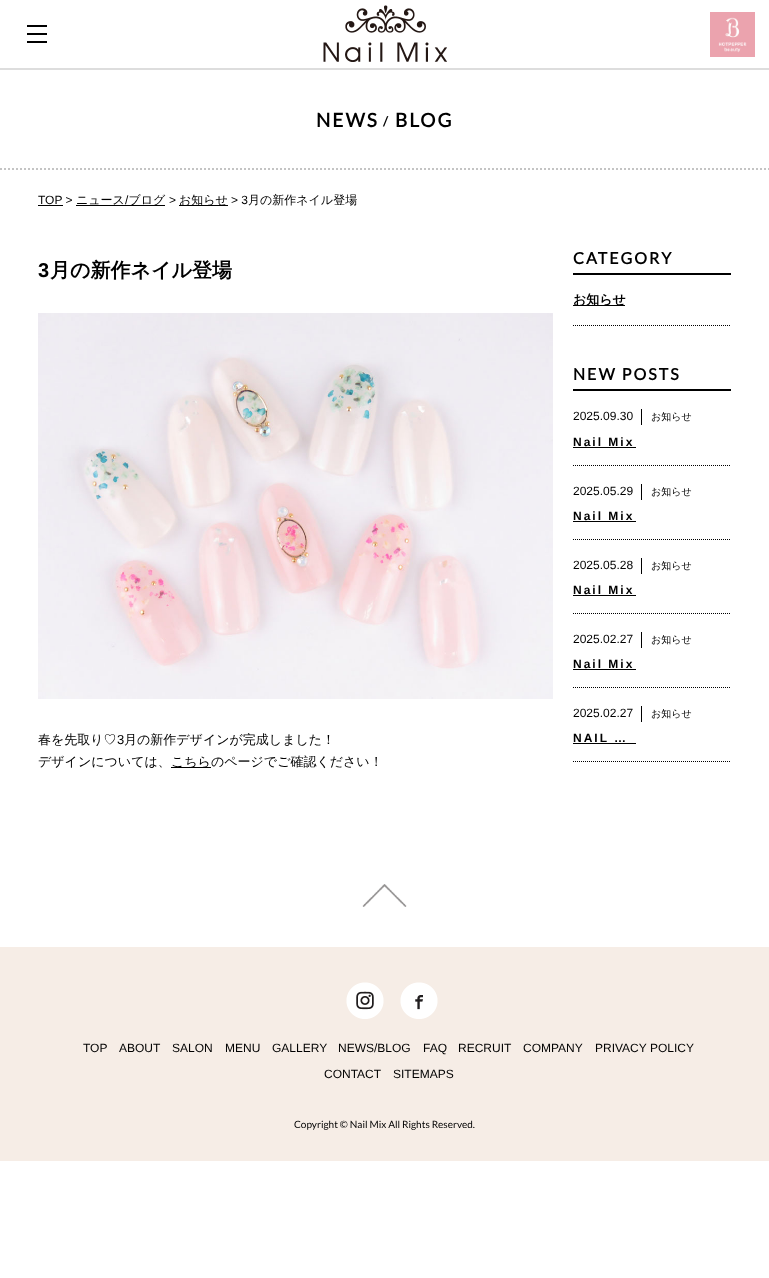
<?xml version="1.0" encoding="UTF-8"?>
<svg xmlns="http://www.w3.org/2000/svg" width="769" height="1278">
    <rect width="100%" height="100%" fill="#FFFFFF"/>
    <rect x="0" y="68" width="769" height="2" fill="#DDDDDD"/>
    <rect x="27" y="25" width="20" height="2" fill="#000000"/>
    <rect x="27" y="33" width="20" height="2" fill="#000000"/>
    <rect x="27" y="41" width="20" height="2" fill="#000000"/>
    <image x="323" y="5" width="124" height="57" href="img_01.png"/>
    <image x="710" y="12" width="45" height="45" href="img_02.png"/>
    <path d="M 0 169 H 769" fill="none" stroke="#C4C4C4" stroke-width="2" stroke-dasharray="2 2"/>
    <text x="316" y="127" font-family="Lato" font-size="19" font-weight="700" letter-spacing="2" fill="#000000">NEWS</text>
    <text x="383" y="126" font-family="Lato" font-size="13" font-weight="700" letter-spacing="2" fill="#000000">/</text>
    <text x="395" y="127" font-family="Lato" font-size="19" font-weight="700" letter-spacing="2" fill="#000000">BLOG</text>
    <text x="38" y="204" font-family="Liberation Sans" font-size="12" fill="#000000">TOP &gt;</text>
    <rect x="38" y="205" width="25" height="1" fill="#000000"/>
    <rect x="76" y="205" width="89" height="1" fill="#000000"/>
    <text x="76" y="204" font-family="WenQuanYi Zen Hei" font-size="12" font-weight="500" fill="#000000">ニュース ブログ</text>
    <rect x="179" y="205" width="49" height="1" fill="#000000"/>
    <text x="179" y="204" font-family="WenQuanYi Zen Hei" font-size="12" font-weight="500" fill="#000000">お知らせ</text>
    <text x="248" y="204" font-family="WenQuanYi Zen Hei" font-size="12" font-weight="500" fill="#000000">月の新作ネイル登場</text>
    <text x="125" y="204" font-family="Liberation Sans" font-size="12" fill="#000000">/</text>
    <text x="169" y="204" font-family="Liberation Sans" font-size="12" fill="#000000">&gt;</text>
    <text x="231" y="204" font-family="Liberation Sans" font-size="12" fill="#000000">&gt; 3</text>
    <text x="38" y="277" font-family="Liberation Sans" font-size="20" font-weight="700" fill="#000000">3</text>
    <text x="50" y="277" font-family="WenQuanYi Zen Hei" font-size="20" font-weight="700" fill="#000000">月の新作ネイル登場</text>
    <image x="38" y="313" width="515" height="386" href="img_03.png"/>
    <text x="38" y="744" font-family="WenQuanYi Zen Hei" font-size="13" font-weight="500" fill="#000000">春を先取り♡</text>
    <text x="117" y="744" font-family="Liberation Sans" font-size="13" fill="#000000">3</text>
    <text x="124" y="744" font-family="WenQuanYi Zen Hei" font-size="13" font-weight="500" fill="#000000">月の新作デザインが完成しました！</text>
    <text x="38" y="766" font-family="WenQuanYi Zen Hei" font-size="13" font-weight="500" fill="#000000">デザインについては、</text>
    <rect x="171" y="767" width="40" height="1" fill="#000000"/>
    <text x="171" y="766" font-family="WenQuanYi Zen Hei" font-size="13" font-weight="500" fill="#000000">こちらのページでご確認ください！</text>
    <rect x="573" y="273" width="158" height="2" fill="#000000"/>
    <text x="573" y="264" font-family="Lato" font-size="16" font-weight="700" letter-spacing="2" fill="#000000">CATEGORY</text>
    <path d="M 573 325.5 H 731" fill="none" stroke="#000000" stroke-dasharray="1 1"/>
    <rect x="573" y="305" width="52" height="1" fill="#000000"/>
    <text x="573" y="304" font-family="WenQuanYi Zen Hei" font-size="13" font-weight="700" fill="#000000">お知らせ</text>
    <rect x="573" y="389" width="158" height="2" fill="#000000"/>
    <text x="573" y="380" font-family="Lato" font-size="16" font-weight="700" letter-spacing="2" fill="#000000">NEW POSTS</text>
    <path d="M 573 465.5 H 731" fill="none" stroke="#000000" stroke-dasharray="1 1"/>
    <text x="573" y="420" font-family="Liberation Sans" font-size="12" fill="#000000">2025.09.30</text>
    <rect x="641" y="409" width="1" height="16" fill="#000000"/>
    <text x="651" y="420" font-family="WenQuanYi Zen Hei" font-size="10" font-weight="500" fill="#000000">お知らせ</text>
    <text x="573" y="446" font-family="Liberation Sans" font-size="12" font-weight="700" letter-spacing="2" fill="#000000">Nail Mix</text>
    <rect x="573" y="447" width="63" height="1" fill="#000000"/>
    <path d="M 573 539.5 H 731" fill="none" stroke="#000000" stroke-dasharray="1 1"/>
    <text x="573" y="495" font-family="Liberation Sans" font-size="12" fill="#000000">2025.05.29</text>
    <rect x="641" y="484" width="1" height="16" fill="#000000"/>
    <text x="651" y="495" font-family="WenQuanYi Zen Hei" font-size="10" font-weight="500" fill="#000000">お知らせ</text>
    <text x="573" y="520" font-family="Liberation Sans" font-size="12" font-weight="700" letter-spacing="2" fill="#000000">Nail Mix</text>
    <rect x="573" y="521" width="63" height="1" fill="#000000"/>
    <path d="M 573 613.5 H 731" fill="none" stroke="#000000" stroke-dasharray="1 1"/>
    <text x="573" y="569" font-family="Liberation Sans" font-size="12" fill="#000000">2025.05.28</text>
    <rect x="641" y="558" width="1" height="16" fill="#000000"/>
    <text x="651" y="569" font-family="WenQuanYi Zen Hei" font-size="10" font-weight="500" fill="#000000">お知らせ</text>
    <text x="573" y="594" font-family="Liberation Sans" font-size="12" font-weight="700" letter-spacing="2" fill="#000000">Nail Mix</text>
    <rect x="573" y="595" width="63" height="1" fill="#000000"/>
    <path d="M 573 687.5 H 731" fill="none" stroke="#000000" stroke-dasharray="1 1"/>
    <text x="573" y="643" font-family="Liberation Sans" font-size="12" fill="#000000">2025.02.27</text>
    <rect x="641" y="632" width="1" height="16" fill="#000000"/>
    <text x="651" y="643" font-family="WenQuanYi Zen Hei" font-size="10" font-weight="500" fill="#000000">お知らせ</text>
    <text x="573" y="668" font-family="Liberation Sans" font-size="12" font-weight="700" letter-spacing="2" fill="#000000">Nail Mix</text>
    <rect x="573" y="669" width="63" height="1" fill="#000000"/>
    <path d="M 573 761.5 H 731" fill="none" stroke="#000000" stroke-dasharray="1 1"/>
    <text x="573" y="717" font-family="Liberation Sans" font-size="12" fill="#000000">2025.02.27</text>
    <rect x="641" y="706" width="1" height="16" fill="#000000"/>
    <text x="651" y="717" font-family="WenQuanYi Zen Hei" font-size="10" font-weight="500" fill="#000000">お知らせ</text>
    <text x="573" y="742" font-family="Liberation Sans" font-size="12" font-weight="700" letter-spacing="2" fill="#000000">NAIL …</text>
    <rect x="573" y="743" width="63" height="1" fill="#000000"/>
    <image x="362" y="884" width="45" height="23" href="img_04.png"/>
    <rect x="0" y="947" width="769" height="214" fill="#F6EDE6"/>
    <image x="346" y="982" width="38" height="37" href="img_05.png"/>
    <image x="400" y="982" width="38" height="37" href="img_06.png"/>
    <text x="83" y="1052" font-family="Liberation Sans" font-size="12" fill="#000000">TOP</text>
    <text x="119" y="1052" font-family="Liberation Sans" font-size="12" fill="#000000">ABOUT</text>
    <text x="172" y="1052" font-family="Liberation Sans" font-size="12" fill="#000000">SALON</text>
    <text x="225" y="1052" font-family="Liberation Sans" font-size="12" fill="#000000">MENU</text>
    <text x="272" y="1052" font-family="Liberation Sans" font-size="12" fill="#000000">GALLERY</text>
    <text x="338" y="1052" font-family="Liberation Sans" font-size="12" fill="#000000">NEWS/BLOG</text>
    <text x="423" y="1052" font-family="Liberation Sans" font-size="12" fill="#000000">FAQ</text>
    <text x="458" y="1052" font-family="Liberation Sans" font-size="12" fill="#000000">RECRUIT</text>
    <text x="523" y="1052" font-family="Liberation Sans" font-size="12" fill="#000000">COMPANY</text>
    <text x="595" y="1052" font-family="Liberation Sans" font-size="12" fill="#000000">PRIVACY POLICY</text>
    <text x="324" y="1078" font-family="Liberation Sans" font-size="12" fill="#000000">CONTACT</text>
    <text x="393" y="1078" font-family="Liberation Sans" font-size="12" fill="#000000">SITEMAPS</text>
    <text x="294" y="1128" font-family="Lato" font-size="10" fill="#000000">Copyright © Nail Mix All Rights Reserved.</text>
</svg>
